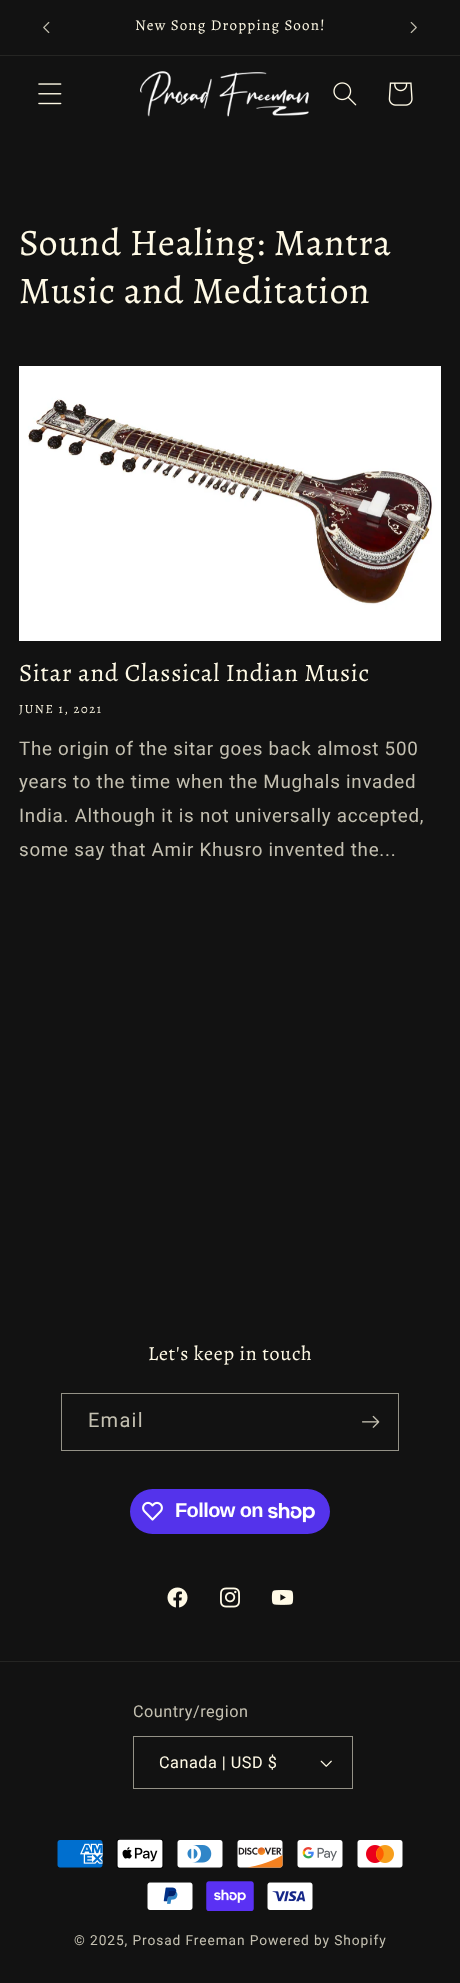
<?xml version="1.0" encoding="UTF-8"?>
<svg xmlns="http://www.w3.org/2000/svg" width="460" height="1983">
    <rect width="100%" height="100%" fill="#121212"/>
    <rect x="0" y="55" width="460" height="1" fill="#252523"/>
    <image x="43" y="21" width="7" height="13" href="img_01.png"/>
    <text x="135" y="30" font-family="Alegreya" font-size="15" letter-spacing="1.25" fill="#FFFAE6">New Song Dropping Soon!</text>
    <image x="410" y="21" width="7" height="13" href="img_02.png"/>
    <image x="38" y="83" width="24" height="22" href="img_03.png"/>
    <image x="140" y="71" width="169" height="46" href="img_04.png"/>
    <image x="333" y="82" width="24" height="24" href="img_05.png"/>
    <image x="388" y="82" width="25" height="24" href="img_06.png"/>
    <text font-family="Alegreya" font-size="37.5" letter-spacing="0.75" fill="#FFFAE6">
        <tspan x="19" y="255">Sound Healing: Mantra</tspan>
        <tspan x="19" y="303">Music and Meditation</tspan>
    </text>
    <image x="19" y="366" width="422" height="275" href="img_07.png"/>
    <text x="19" y="681" font-family="Alegreya" font-size="25" letter-spacing="0.75" fill="#FFFAE6">Sitar and Classical Indian Music</text>
    <text x="19" y="713" font-family="Alegreya" font-size="12.5" letter-spacing="1.6" fill="#FFFAE6">JUNE 1, 2021</text>
    <text font-family="Roboto" font-size="18.75" letter-spacing="0.75" fill="#C4C0B1">
        <tspan x="19" y="755">The origin of the sitar goes back almost 500</tspan>
        <tspan x="19" y="788">years to the time when the Mughals invaded</tspan>
        <tspan x="19" y="822">India. Although it is not universally accepted,</tspan>
        <tspan x="19" y="856">some say that Amir Khusro invented the...</tspan>
    </text>
    <text x="148" y="1360" font-family="Alegreya" font-size="20" letter-spacing="0.75" fill="#FFFAE6">Let's keep in touch</text>
    <rect x="61.5" y="1393.5" width="337" height="57" fill="none" stroke="#949287"/>
    <text x="88" y="1427" font-family="Roboto" font-size="20" letter-spacing="1.25" fill="#C4C0B1">Email</text>
    <image x="362" y="1415" width="18" height="13" href="img_08.png"/>
    <rect x="130" y="1489" width="200" height="45" rx="22.5" fill="#5433EB"/>
    <image x="142" y="1501" width="21" height="20" href="img_09.png"/>
    <text x="175" y="1517" font-family="Liberation Sans" font-size="20" font-weight="700" letter-spacing="-0.6" fill="#FFFFFF">Follow on</text>
    <image x="268" y="1503" width="47" height="20" href="img_10.png"/>
    <image x="167" y="1587" width="21" height="21" href="img_11.png"/>
    <image x="220" y="1587" width="20" height="21" href="img_12.png"/>
    <image x="271" y="1590" width="23" height="15" href="img_13.png"/>
    <rect x="0" y="1661" width="460" height="1" fill="#252523"/>
    <text x="133" y="1717" font-family="Roboto" font-size="16.25" letter-spacing="0.5" fill="#C4C0B1">Country/region</text>
    <image x="320" y="1760" width="12" height="7" href="img_14.png"/>
    <rect x="133.5" y="1736.5" width="219" height="52" fill="none" stroke="#949287"/>
    <text x="159" y="1768" font-family="Roboto" font-size="16.25" letter-spacing="0.5" fill="#FFFAE6">Canada | USD $</text>
    <image x="57" y="1840" width="46" height="28" href="img_15.png"/>
    <image x="116" y="1839" width="48" height="30" href="img_16.png"/>
    <image x="177" y="1840" width="46" height="28" href="img_17.png"/>
    <image x="237" y="1840" width="46" height="28" href="img_18.png"/>
    <image x="297" y="1840" width="46" height="28" href="img_19.png"/>
    <image x="357" y="1840" width="46" height="28" href="img_20.png"/>
    <image x="147" y="1882" width="46" height="28" href="img_21.png"/>
    <image x="206" y="1881" width="48" height="30" href="img_22.png"/>
    <image x="267" y="1882" width="46" height="28" href="img_23.png"/>
    <text x="74" y="1945" font-family="Roboto" font-size="13.75" letter-spacing="0.9" fill="#C4C0B1">© 2025, Prosad Freeman Powered by Shopify</text>
</svg>
